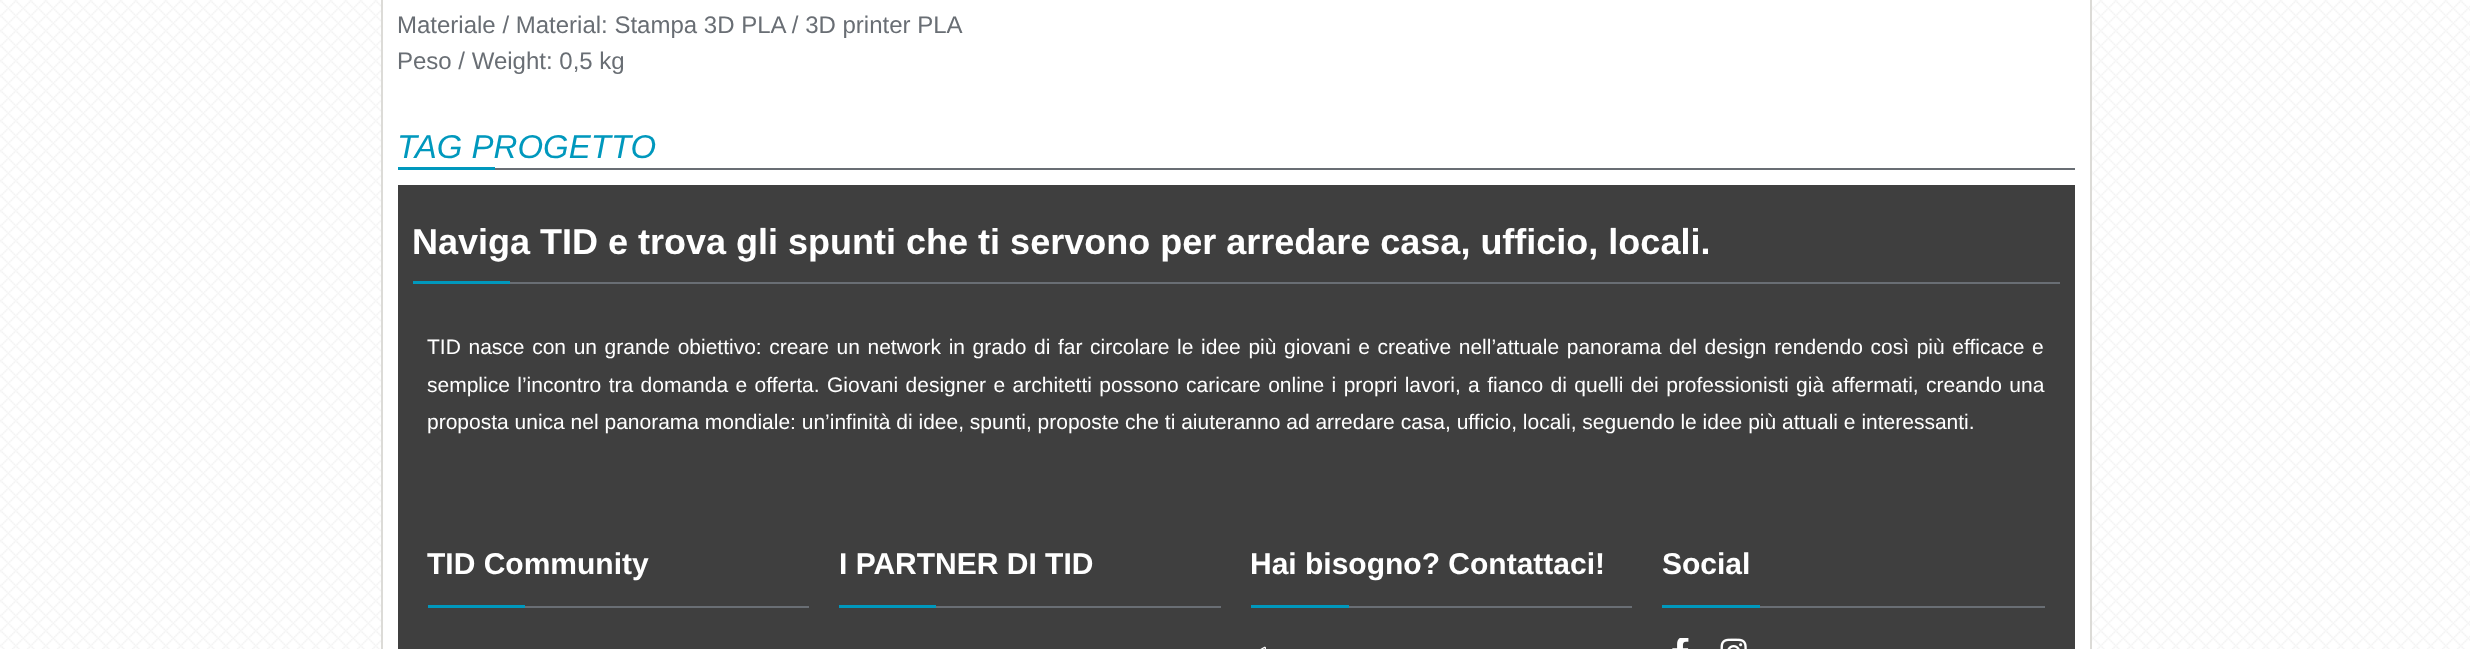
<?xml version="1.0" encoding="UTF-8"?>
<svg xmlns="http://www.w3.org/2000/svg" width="2470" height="649">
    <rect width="100%" height="100%" fill="#FFFFFF"/>
    <image x="0" y="0" width="2470" height="649" href="img_01.png"/>
    <rect x="383" y="0" width="1707" height="649" fill="#FFFFFF"/>
    <rect x="2090" y="0" width="2" height="649" fill="#DCDBD7"/>
    <rect x="381" y="0" width="2" height="649" fill="#DCDBD7"/>
    <text font-family="Liberation Sans" font-size="24" fill="#696E74">
        <tspan x="397" y="33">Materiale / Material: Stampa 3D PLA / 3D printer PLA</tspan>
        <tspan x="397" y="69">Peso / Weight: 0,5 kg</tspan>
    </text>
    <rect x="495" y="168" width="1580" height="2" fill="#696E74"/>
    <text x="397" y="158" font-family="Liberation Sans" font-size="33" font-style="italic" fill="#0098BD">TAG PROGETTO</text>
    <rect x="398" y="167" width="97" height="3" fill="#0098BD"/>
    <rect x="398" y="185" width="1677" height="464" fill="#3F3F3F"/>
    <rect x="510" y="282" width="1550" height="2" fill="#696E74"/>
    <text x="412" y="254" font-family="Liberation Sans" font-size="36" font-weight="700" fill="#FFFFFF">Naviga TID e trova gli spunti che ti servono per arredare casa, ufficio, locali.</text>
    <rect x="413" y="281" width="97" height="3" fill="#0098BD"/>
    <text font-family="Liberation Sans" font-size="21" fill="#FFFFFF">
        <tspan x="427" y="354" word-spacing="1.8">TID nasce con un grande obiettivo: creare un network in grado di far circolare le idee più giovani e creative nell’attuale panorama del design rendendo così più efficace e</tspan>
        <tspan x="427" y="392" word-spacing="1.55">semplice l’incontro tra domanda e offerta. Giovani designer e architetti possono caricare online i propri lavori, a fianco di quelli dei professionisti già affermati, creando una</tspan>
        <tspan x="427" y="429">proposta unica nel panorama mondiale: un’infinità di idee, spunti, proposte che ti aiuteranno ad arredare casa, ufficio, locali, seguendo le idee più attuali e interessanti.</tspan>
    </text>
    <rect x="525" y="606" width="284" height="2" fill="#696E74"/>
    <text x="427" y="574" font-family="Liberation Sans" font-size="30" font-weight="700" fill="#FFFFFF">TID Community</text>
    <rect x="428" y="605" width="97" height="3" fill="#0098BD"/>
    <rect x="936" y="606" width="285" height="2" fill="#696E74"/>
    <text x="839" y="574" font-family="Liberation Sans" font-size="30" font-weight="700" fill="#FFFFFF">I PARTNER DI TID</text>
    <rect x="839" y="605" width="97" height="3" fill="#0098BD"/>
    <rect x="1349" y="606" width="283" height="2" fill="#696E74"/>
    <text x="1250" y="574" font-family="Liberation Sans" font-size="30" font-weight="700" fill="#FFFFFF">Hai bisogno? Contattaci!</text>
    <rect x="1251" y="605" width="98" height="3" fill="#0098BD"/>
    <image x="1260" y="646" width="6" height="3" href="img_02.png"/>
    <rect x="1760" y="606" width="285" height="2" fill="#696E74"/>
    <text x="1662" y="574" font-family="Liberation Sans" font-size="30" font-weight="700" fill="#FFFFFF">Social</text>
    <rect x="1662" y="605" width="98" height="3" fill="#0098BD"/>
    <image x="1672" y="638" width="17" height="11" href="img_03.png"/>
    <image x="1720" y="638" width="27" height="11" href="img_04.png"/>
</svg>
